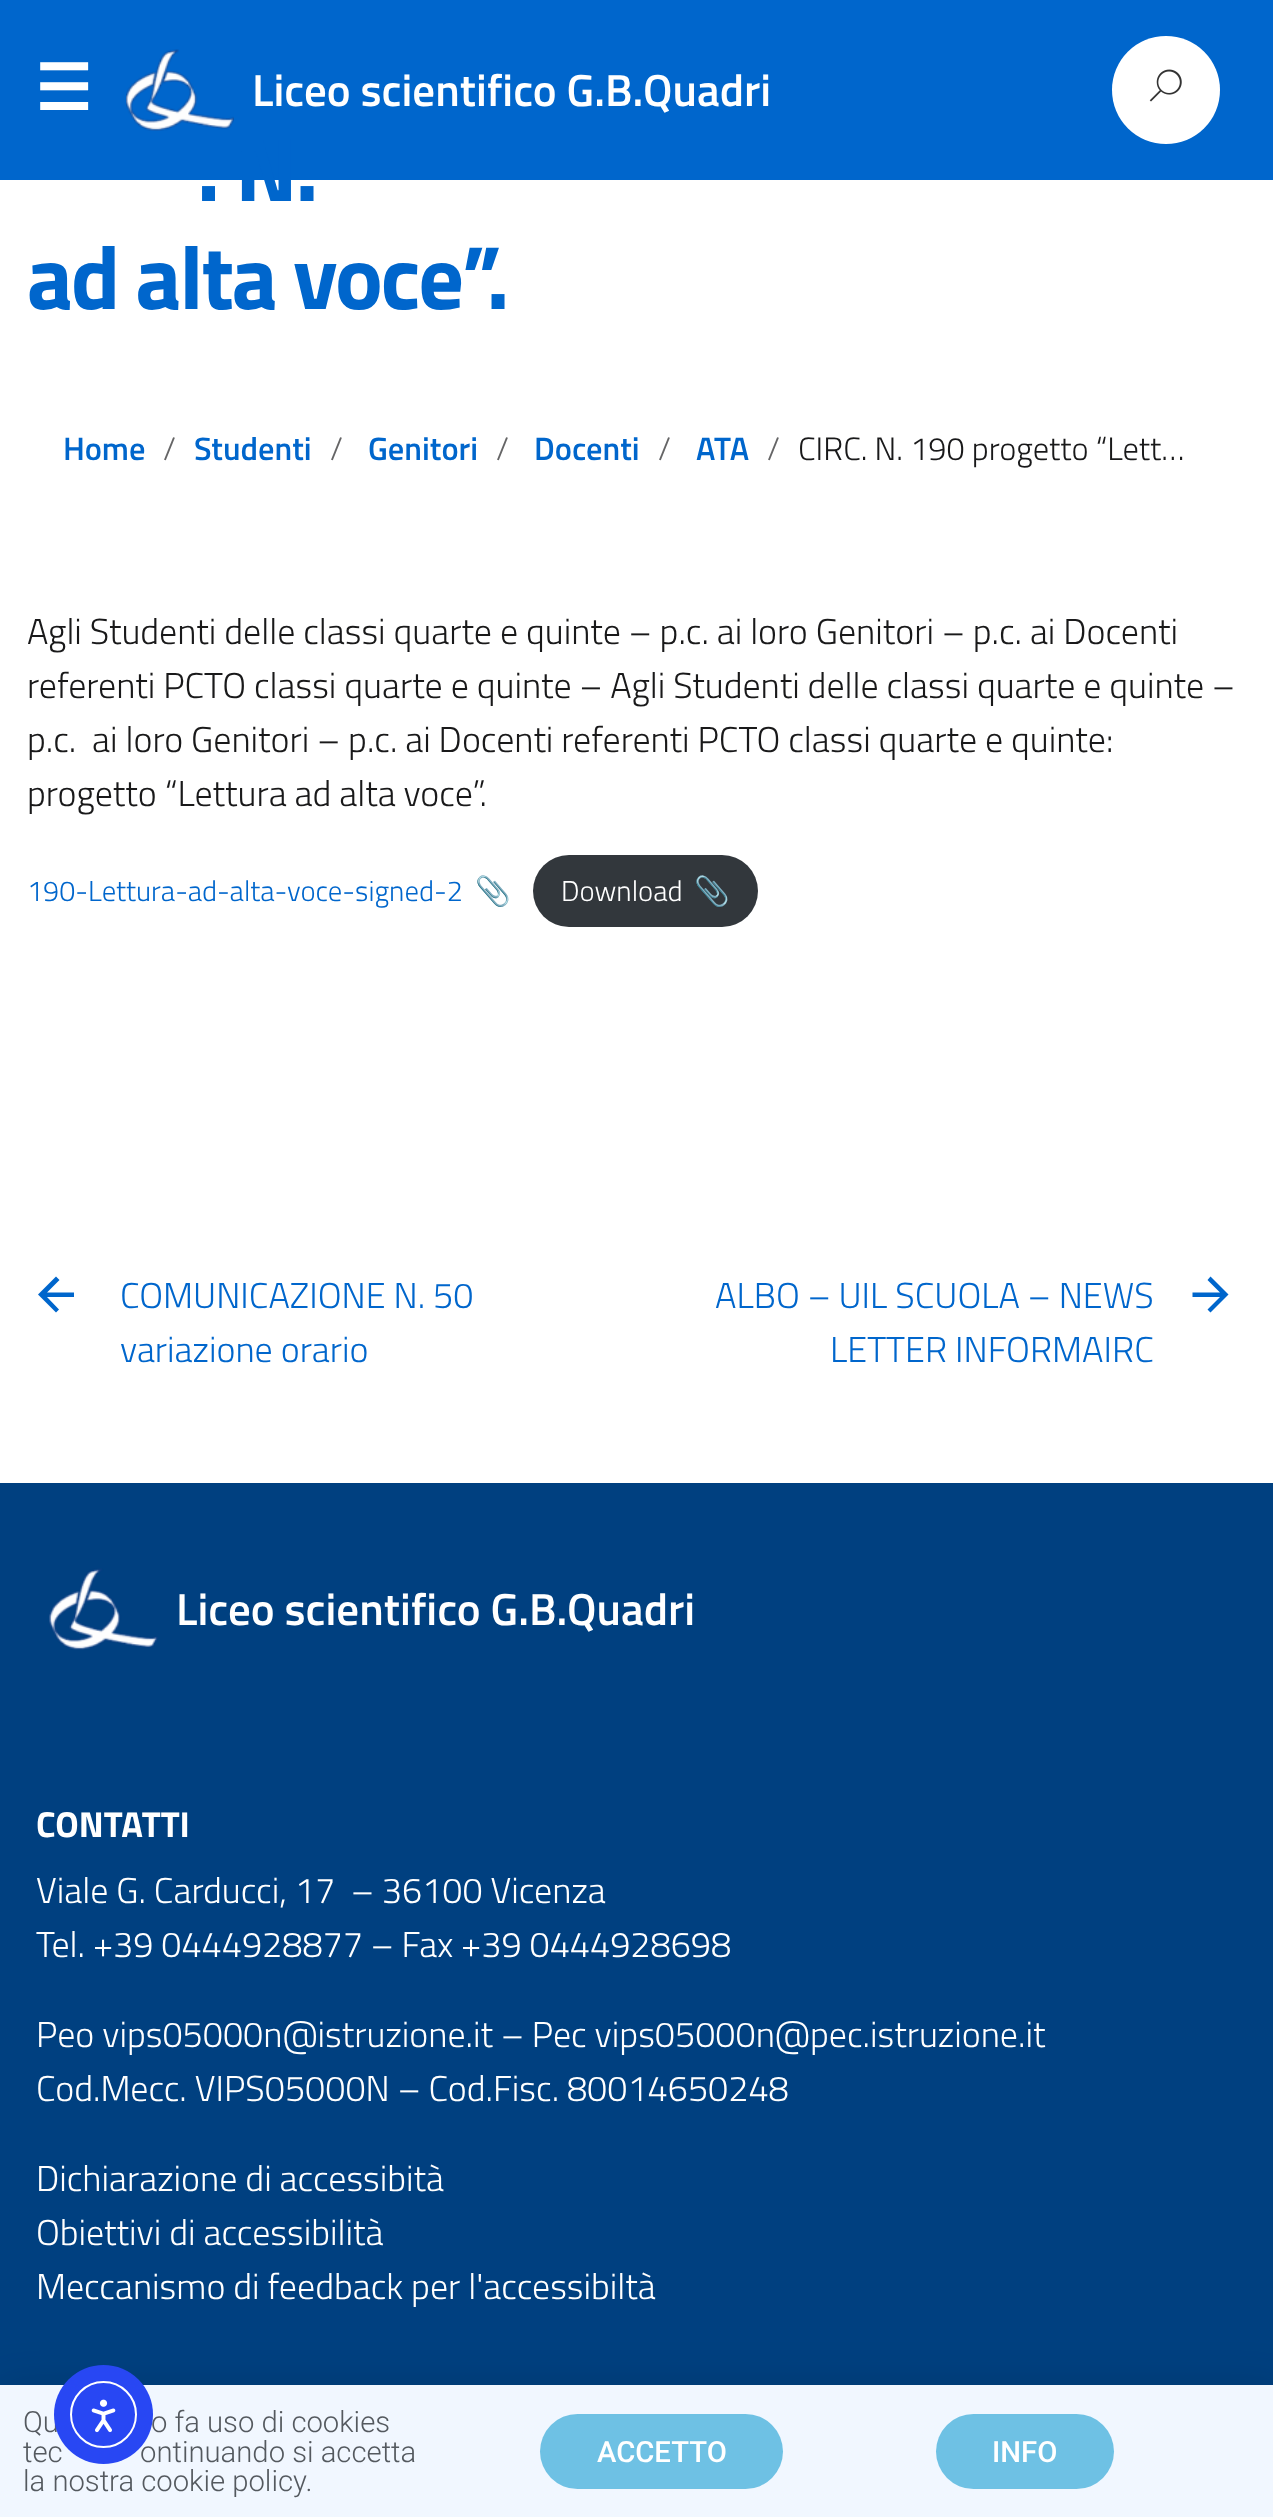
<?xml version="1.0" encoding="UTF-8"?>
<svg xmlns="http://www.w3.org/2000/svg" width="1273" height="2517">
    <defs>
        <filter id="blur1" x="-50%" y="-200%" width="200%" height="500%"><feGaussianBlur stdDeviation="26"/></filter>
    </defs>
    <rect width="100%" height="100%" fill="#FFFFFF"/>
    <rect x="0" y="0" width="1273" height="180" fill="#0066CC"/>
    <text x="35" y="110" font-family="DejaVu Sans" font-size="63" font-weight="700" fill="#FFFFFF">☰</text>
    <image x="126" y="49" width="108" height="82" href="img_01.png"/>
    <text x="252" y="106" font-family="Titillium Web" font-size="45" font-weight="600" fill="#FFFFFF">Liceo scientifico G.B.Quadri</text>
    <circle cx="1166" cy="90" r="54" fill="#FFFFFF"/>
    <image x="1149" y="69" width="33" height="33" href="img_02.png"/>
    <text x="197" y="201" font-family="Titillium Web" font-size="90" font-weight="700" letter-spacing="-2.25" fill="#0066CC">. N.</text>
    <text x="27" y="309" font-family="Titillium Web" font-size="90" font-weight="700" letter-spacing="-2.25" fill="#0066CC">ad alta voce”.</text>
    <text x="63" y="460" font-family="Titillium Web" font-size="32.4" font-weight="600" fill="#0066CC">Home</text>
    <text x="163" y="460" font-family="Titillium Web" font-size="32.4" font-weight="300" fill="#656566">/</text>
    <text x="194" y="460" font-family="Titillium Web" font-size="32.4" font-weight="600" fill="#0066CC">Studenti</text>
    <text x="330" y="460" font-family="Titillium Web" font-size="32.4" font-weight="300" fill="#656566">/</text>
    <text x="368" y="460" font-family="Titillium Web" font-size="32.4" font-weight="600" fill="#0066CC">Genitori</text>
    <text x="496" y="460" font-family="Titillium Web" font-size="32.4" font-weight="300" fill="#656566">/</text>
    <text x="534" y="460" font-family="Titillium Web" font-size="32.4" font-weight="600" fill="#0066CC">Docenti</text>
    <text x="658" y="460" font-family="Titillium Web" font-size="32.4" font-weight="300" fill="#656566">/</text>
    <text x="696" y="460" font-family="Titillium Web" font-size="32.4" font-weight="600" fill="#0066CC">ATA</text>
    <text x="767" y="460" font-family="Titillium Web" font-size="32.4" font-weight="300" fill="#656566">/</text>
    <text x="798" y="460" font-family="Titillium Web" font-size="32.4" font-weight="300" fill="#19191A">CIRC. N. 190 progetto “Lett…</text>
    <text font-family="Titillium Web" font-size="36" font-weight="300" fill="#19191A" xml:space="preserve"><tspan x="27" y="644">Agli Studenti delle classi quarte e quinte – p.c. ai loro Genitori – p.c. ai Docenti</tspan><tspan x="27" y="698">referenti PCTO classi quarte e quinte – Agli Studenti delle classi quarte e quinte –</tspan><tspan x="27" y="752">p.c.  ai loro Genitori – p.c. ai Docenti referenti PCTO classi quarte e quinte:</tspan><tspan x="27" y="806">progetto “Lettura ad alta voce”.</tspan></text>
    <text x="27" y="901" font-family="Titillium Web" font-size="28.75" font-weight="300" fill="#0066CC">190-Lettura-ad-alta-voce-signed-2</text>
    <text x="475" y="901" font-family="Noto Color Emoji" font-size="28.75" fill="#0066CC">📎</text>
    <rect x="533" y="855" width="225" height="72" rx="36" fill="#32373C"/>
    <text x="561" y="901" font-family="Titillium Web" font-size="28.75" font-weight="300" fill="#FFFFFF">Download</text>
    <text x="694" y="901" font-family="Noto Color Emoji" font-size="28.75" fill="#FFFFFF">📎</text>
    <path d="M 74 1292.5 H 47 L 59.5 1280 L 56 1276.5 L 38 1294.5 L 56 1312.5 L 59 1309.5 L 47 1297 H 74 Z" fill="#0066CC"/>
    <text font-family="Titillium Web" font-size="36" font-weight="300" fill="#0066CC">
        <tspan x="120" y="1308">COMUNICAZIONE N. 50</tspan>
        <tspan x="120" y="1362">variazione orario</tspan>
    </text>
    <text x="715" y="1308" font-family="Titillium Web" font-size="36" font-weight="300" fill="#0066CC">ALBO – UIL SCUOLA – NEWS</text>
    <text x="830" y="1362" font-family="Titillium Web" font-size="36" font-weight="300" fill="#0066CC">LETTER INFORMAIRC</text>
    <path d="M 1192.5 1297 H 1220 L 1207.5 1309.5 L 1210.5 1312.5 L 1228.5 1294.5 L 1210.5 1276.5 L 1207.5 1280 L 1220 1292.5 H 1192.5 Z" fill="#0066CC"/>
    <rect x="0" y="1483" width="1273" height="902" fill="#004080"/>
    <image x="49" y="1568" width="109" height="82" href="img_03.png"/>
    <text x="176" y="1625" font-family="Titillium Web" font-size="45" font-weight="600" fill="#FFFFFF">Liceo scientifico G.B.Quadri</text>
    <text x="36" y="1837" font-family="Titillium Web" font-size="36" font-weight="700" fill="#FFFFFF">CONTATTI</text>
    <text font-family="Titillium Web" font-size="36" font-weight="300" fill="#FFFFFF" xml:space="preserve"><tspan x="36" y="1903">Viale G. Carducci, 17  – 36100 Vicenza</tspan><tspan x="36" y="1957">Tel. +39 0444928877 – Fax +39 0444928698</tspan></text>
    <text font-family="Titillium Web" font-size="36" font-weight="300" fill="#FFFFFF">
        <tspan x="36" y="2047">Peo vips05000n@istruzione.it – Pec vips05000n@pec.istruzione.it</tspan>
        <tspan x="36" y="2101">Cod.Mecc. VIPS05000N – Cod.Fisc. 80014650248</tspan>
    </text>
    <text font-family="Titillium Web" font-size="36" font-weight="300" fill="#FFFFFF">
        <tspan x="36" y="2191">Dichiarazione di accessibità</tspan>
        <tspan x="36" y="2245">Obiettivi di accessibilità</tspan>
        <tspan x="36" y="2299">Meccanismo di feedback per l'accessibiltà</tspan>
    </text>
    <rect x="-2" y="2396" width="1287" height="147" fill="#000000" fill-opacity="0.2" filter="url(#blur1)"/>
    <rect x="0" y="2385" width="1273" height="132" fill="#F1F7FF"/>
    <text x="23" y="2432" font-family="Roboto" font-size="29.25" font-weight="300" fill="#54595F">Qu</text>
    <text x="151" y="2432" font-family="Roboto" font-size="29.25" font-weight="300" fill="#54595F">o fa uso di cookies</text>
    <text x="23" y="2462" font-family="Roboto" font-size="29.25" font-weight="300" fill="#54595F">tec</text>
    <text x="140" y="2462" font-family="Roboto" font-size="29.25" font-weight="300" fill="#54595F">ontinuando si accetta</text>
    <circle cx="103.5" cy="2414.5" r="49.5" fill="#2847F3"/>
    <circle cx="103.5" cy="2414.5" r="32.5" fill="none" stroke="#FFFFFF" stroke-width="2"/>
    <image x="91" y="2399" width="25" height="34" href="img_04.png"/>
    <text x="23" y="2491" font-family="Roboto" font-size="29.25" font-weight="300" fill="#54595F">la nostra cookie policy.</text>
    <rect x="540" y="2414" width="243" height="75" rx="37.5" fill="#6EC1E4"/>
    <text x="597" y="2462" font-family="Roboto" font-size="29.25" font-weight="500" fill="#FFFFFF">ACCETTO</text>
    <rect x="936" y="2414" width="178" height="75" rx="37.5" fill="#6EC1E4"/>
    <text x="992" y="2462" font-family="Roboto" font-size="29.25" font-weight="500" fill="#FFFFFF">INFO</text>
</svg>
